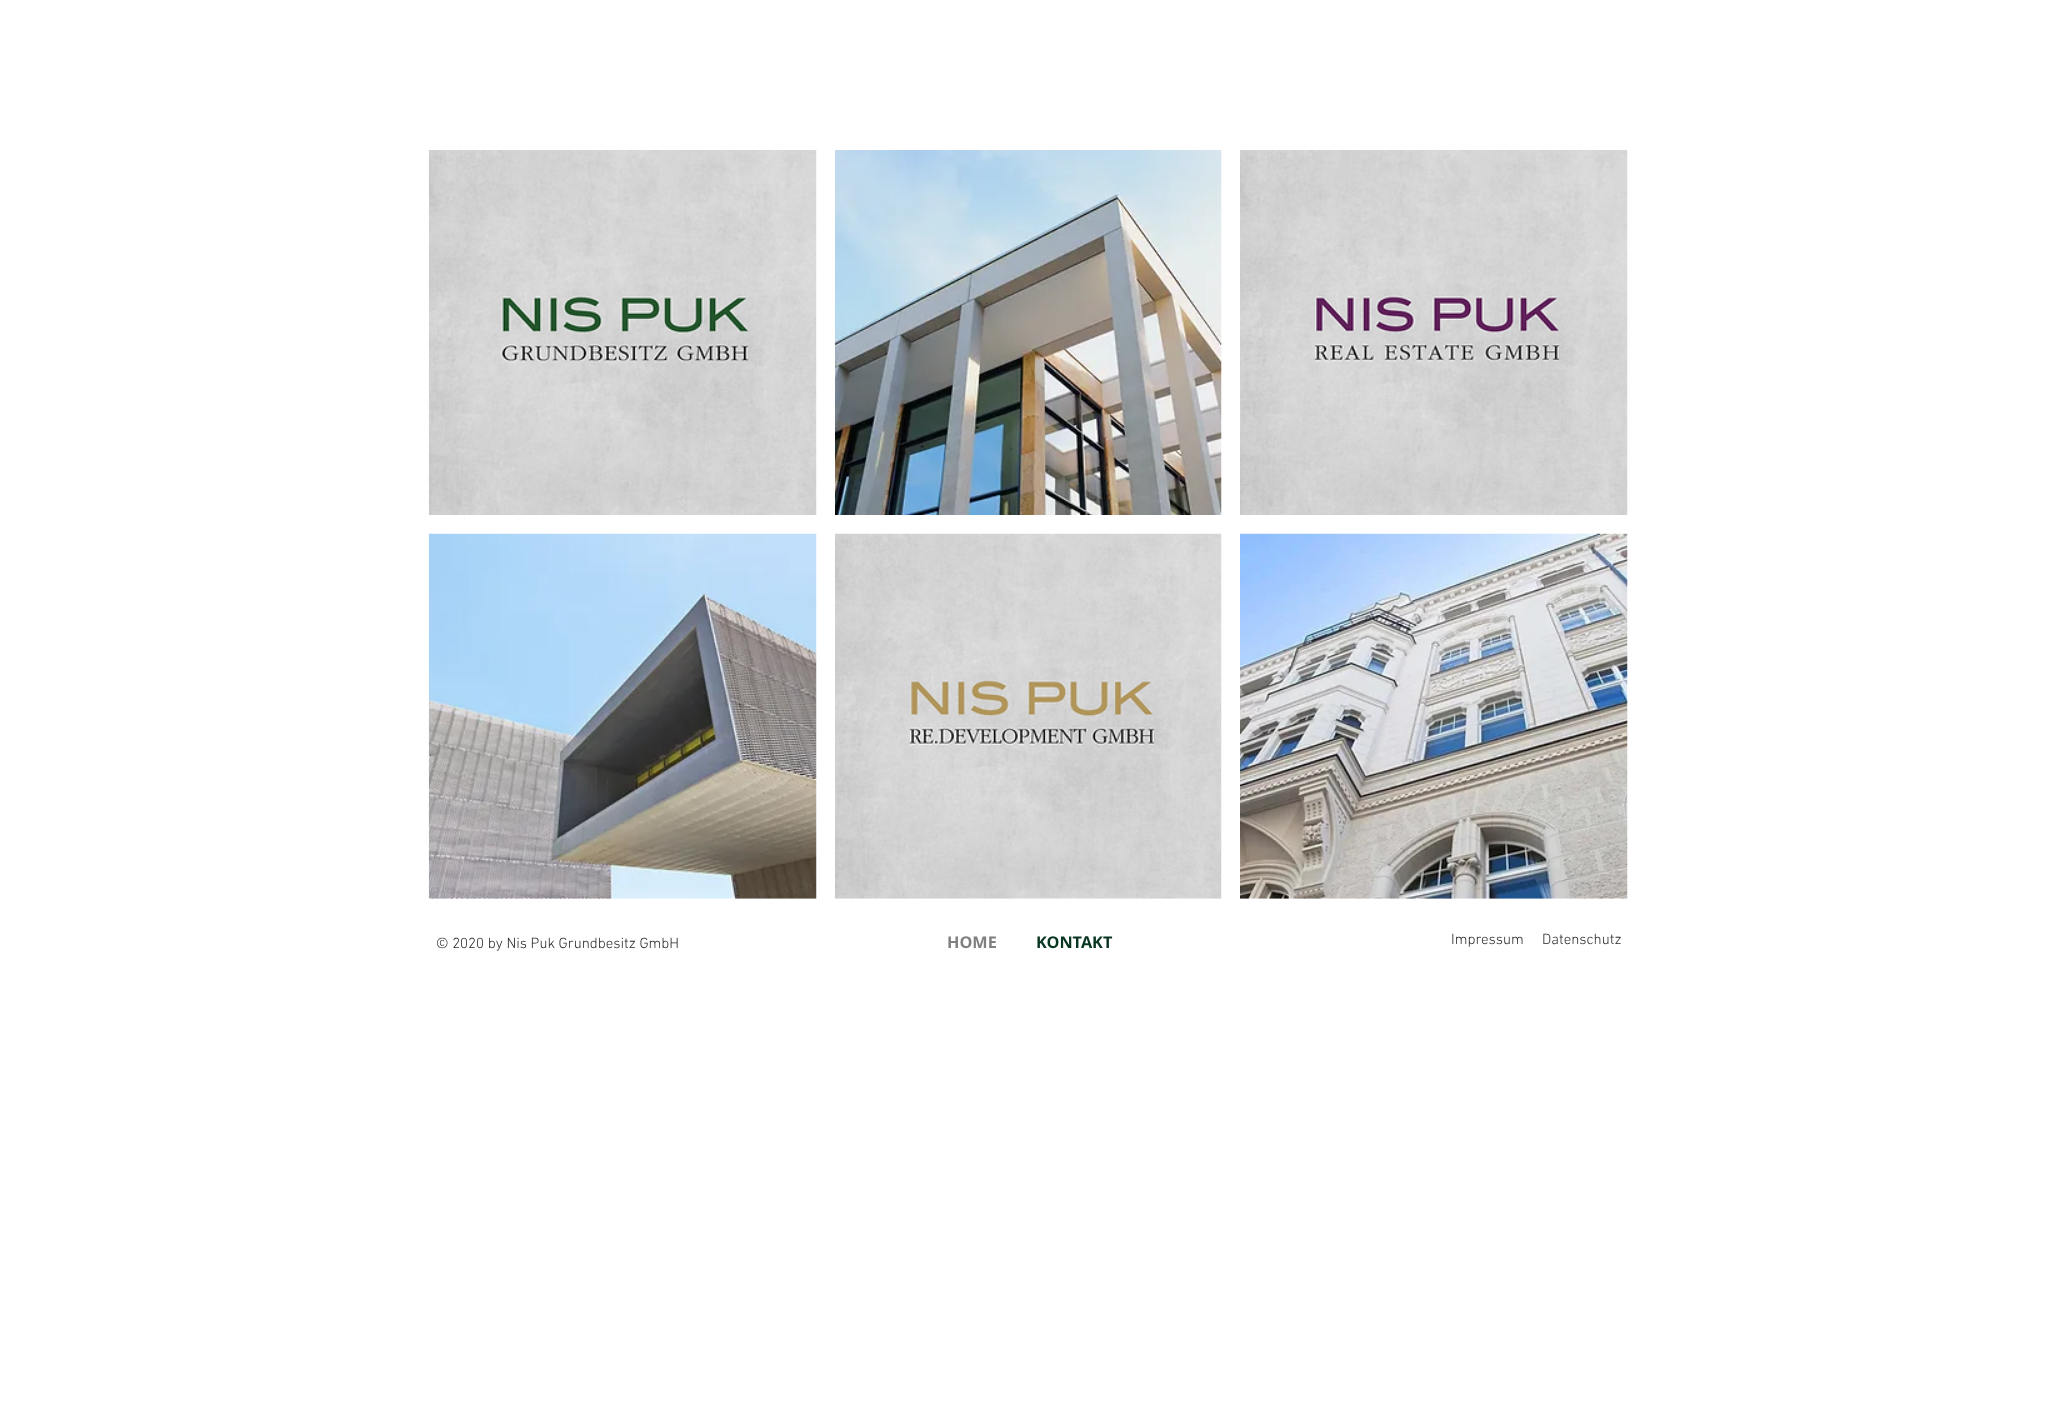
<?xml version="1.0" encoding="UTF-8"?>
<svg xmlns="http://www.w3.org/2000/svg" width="2057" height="1415">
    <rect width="100%" height="100%" fill="#FFFFFF"/>
    <image x="428" y="150" width="389" height="365" href="img_01.png"/>
    <image x="835" y="150" width="387" height="365" href="img_02.png"/>
    <image x="1240" y="150" width="388" height="365" href="img_03.png"/>
    <image x="428" y="533" width="389" height="366" href="img_04.png"/>
    <image x="835" y="533" width="387" height="366" href="img_05.png"/>
    <image x="1240" y="533" width="388" height="366" href="img_06.png"/>
    <text x="436" y="948" font-family="'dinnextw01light'" font-size="15" font-weight="300" fill="#2A2A2A">© 2020 by Nis Puk Grundbesitz GmbH</text>
    <text x="947" y="948" font-family="Open Sans" font-size="16.25" font-weight="700" fill="#808080">HOME</text>
    <text x="1036" y="948" font-family="Open Sans" font-size="16.25" font-weight="700" fill="#093620">KONTAKT</text>
    <text x="1451" y="944" font-family="'dinnextw01light'" font-size="15" font-weight="300" fill="#2A2A2A">Impressum</text>
    <text x="1542" y="944" font-family="'dinnextw01light'" font-size="15" font-weight="300" fill="#2A2A2A">Datenschutz</text>
</svg>
